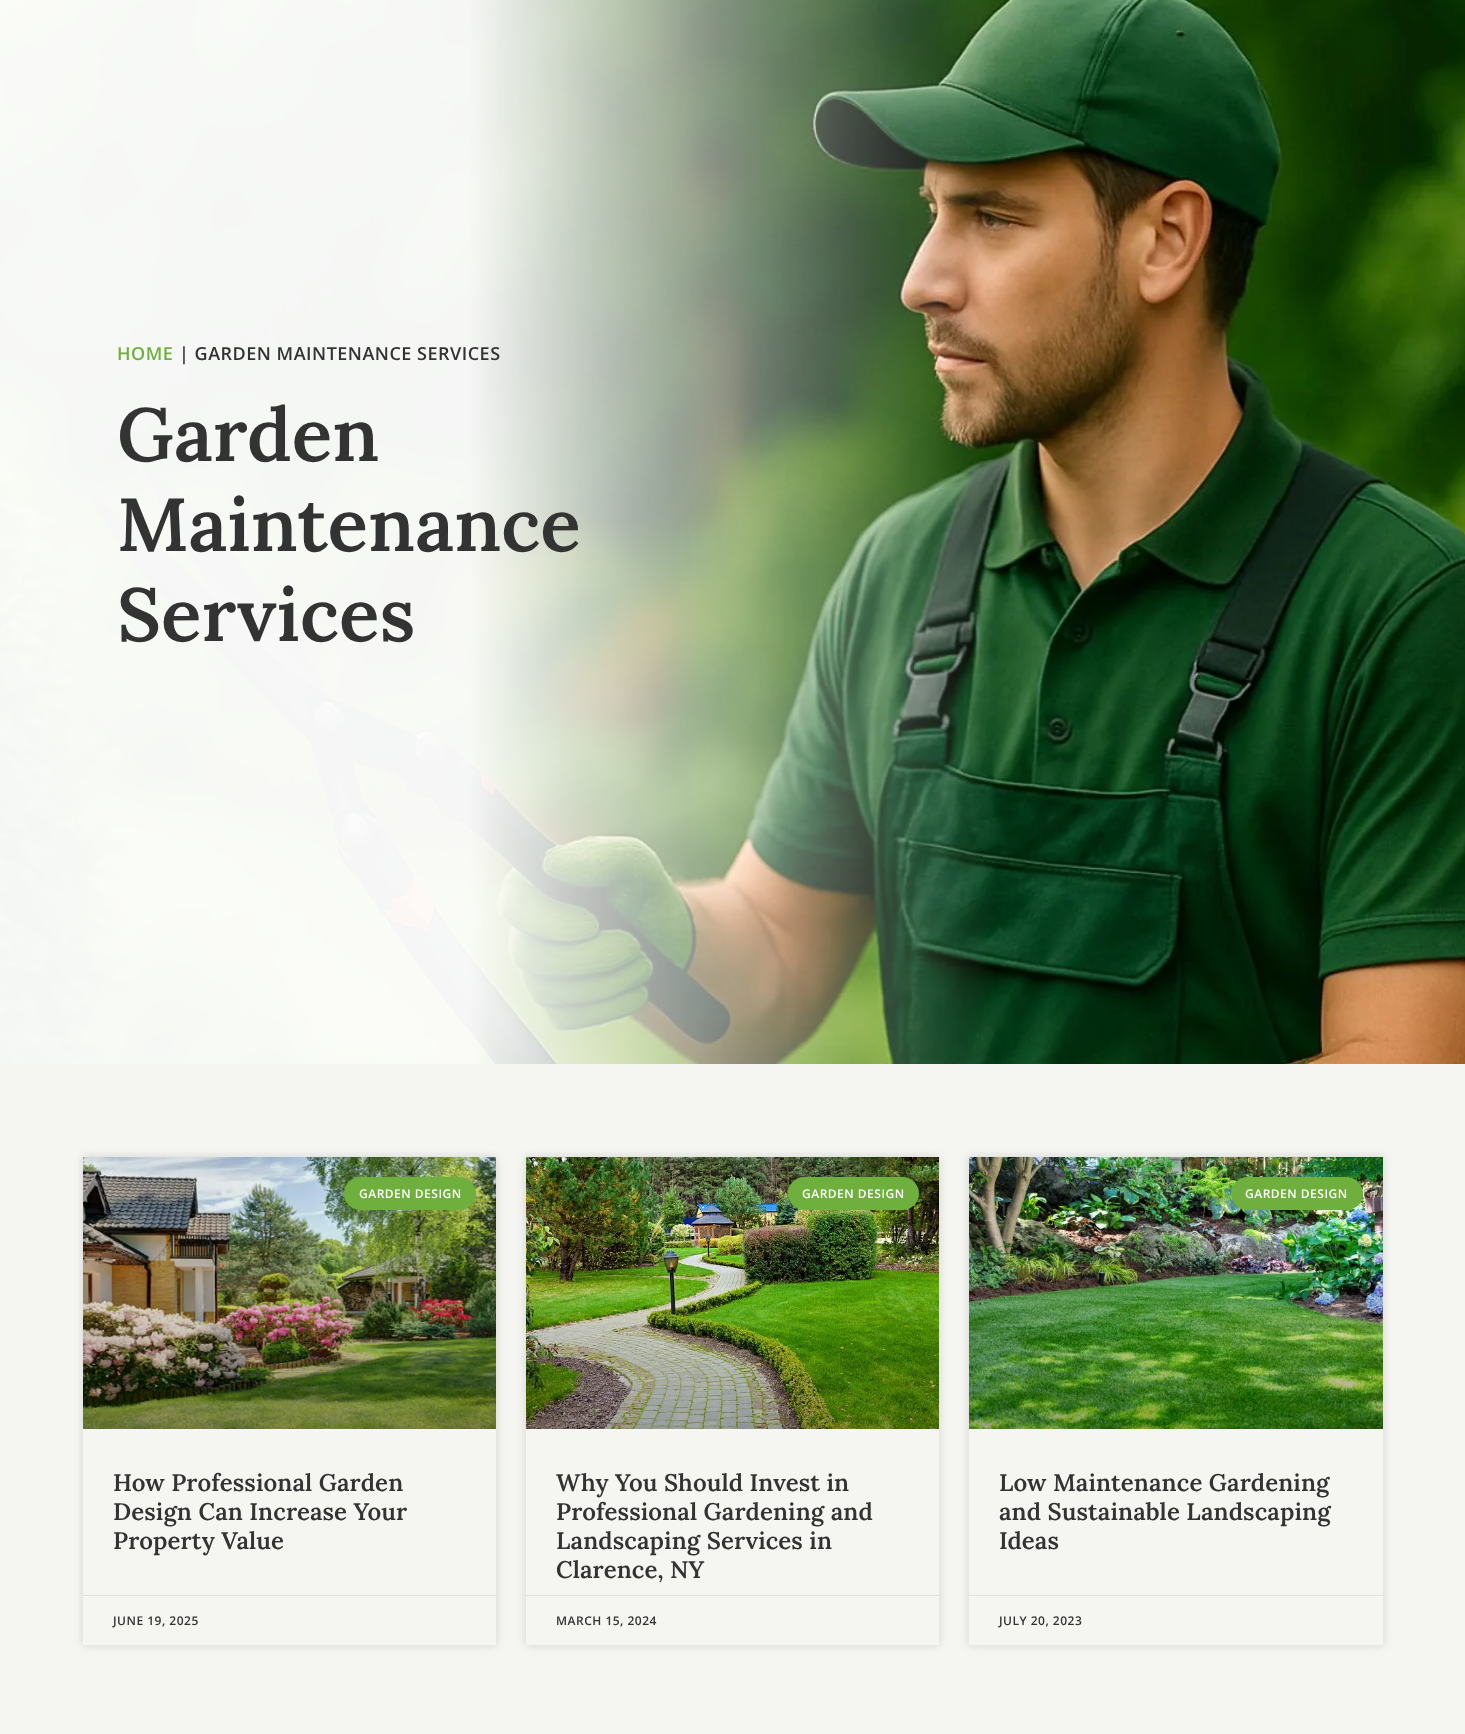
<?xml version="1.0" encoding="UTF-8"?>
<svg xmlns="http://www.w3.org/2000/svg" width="1465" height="1734">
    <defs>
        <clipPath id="clip1"><path d="M 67 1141 H 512 V 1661 H 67 Z M 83 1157 H 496 V 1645 H 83 Z" clip-rule="evenodd"/></clipPath>
        <filter id="blur1" x="-50%" y="-200%" width="200%" height="500%"><feGaussianBlur stdDeviation="5"/></filter>
        <clipPath id="clip2"><path d="M 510 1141 H 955 V 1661 H 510 Z M 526 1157 H 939 V 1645 H 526 Z" clip-rule="evenodd"/></clipPath>
        <clipPath id="clip3"><path d="M 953 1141 H 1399 V 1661 H 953 Z M 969 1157 H 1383 V 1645 H 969 Z" clip-rule="evenodd"/></clipPath>
    </defs>
    <rect width="100%" height="100%" fill="#FFFFFF"/>
    <image x="0" y="0" width="1465" height="1064" href="img_01.png"/>
    <text x="117" y="360" font-family="Open Sans" font-size="18" font-weight="600" letter-spacing="0.5" fill="#6FAF3E">HOME</text>
    <text x="179" y="360" font-family="Open Sans" font-size="18" font-weight="600" letter-spacing="0.5" fill="#333333">| GARDEN MAINTENANCE SERVICES</text>
    <text font-family="Lora" font-size="75" font-weight="600" fill="#333333">
        <tspan x="117" y="461">Garden</tspan>
        <tspan x="117" y="551">Maintenance</tspan>
        <tspan x="117" y="641">Services</tspan>
    </text>
    <rect x="0" y="1064" width="1465" height="670" fill="#F5F5F2"/>
    <g clip-path="url(#clip1)">
        <rect x="83" y="1157" width="413" height="488" fill="#000000" fill-opacity="0.15" filter="url(#blur1)"/>
    </g>
    <image x="83" y="1157" width="413" height="272" href="img_02.png"/>
    <rect x="344" y="1177" width="132" height="33" rx="16.5" fill="#6FAF3E"/>
    <text x="359" y="1198" font-family="Open Sans" font-size="12" font-weight="600" letter-spacing="0.5" fill="#FFFFFF">GARDEN DESIGN</text>
    <text font-family="Lora" font-size="24" font-weight="600" letter-spacing="0.1" fill="#333333">
        <tspan x="113" y="1491">How Professional Garden</tspan>
        <tspan x="113" y="1520">Design Can Increase Your</tspan>
        <tspan x="113" y="1549">Property Value</tspan>
    </text>
    <rect x="83" y="1595" width="413" height="1" fill="#E0E0E0"/>
    <text x="113" y="1625" font-family="Open Sans" font-size="12" font-weight="600" letter-spacing="0.5" fill="#333333">JUNE 19, 2025</text>
    <g clip-path="url(#clip2)">
        <rect x="526" y="1157" width="413" height="488" fill="#000000" fill-opacity="0.15" filter="url(#blur1)"/>
    </g>
    <image x="526" y="1157" width="413" height="272" href="img_03.png"/>
    <rect x="788" y="1177" width="131" height="33" rx="16.5" fill="#6FAF3E"/>
    <text x="802" y="1198" font-family="Open Sans" font-size="12" font-weight="600" letter-spacing="0.5" fill="#FFFFFF">GARDEN DESIGN</text>
    <text font-family="Lora" font-size="24" font-weight="600" letter-spacing="0.1" fill="#333333">
        <tspan x="556" y="1491">Why You Should Invest in</tspan>
        <tspan x="556" y="1520">Professional Gardening and</tspan>
        <tspan x="556" y="1549">Landscaping Services in</tspan>
        <tspan x="556" y="1578">Clarence, NY</tspan>
    </text>
    <rect x="526" y="1595" width="413" height="1" fill="#E0E0E0"/>
    <text x="556" y="1625" font-family="Open Sans" font-size="12" font-weight="600" letter-spacing="0.5" fill="#333333">MARCH 15, 2024</text>
    <g clip-path="url(#clip3)">
        <rect x="969" y="1157" width="414" height="488" fill="#000000" fill-opacity="0.15" filter="url(#blur1)"/>
    </g>
    <image x="969" y="1157" width="414" height="272" href="img_04.png"/>
    <rect x="1231" y="1177" width="132" height="33" rx="16.5" fill="#6FAF3E"/>
    <text x="1245" y="1198" font-family="Open Sans" font-size="12" font-weight="600" letter-spacing="0.5" fill="#FFFFFF">GARDEN DESIGN</text>
    <text font-family="Lora" font-size="24" font-weight="600" letter-spacing="0.1" fill="#333333">
        <tspan x="999" y="1491">Low Maintenance Gardening</tspan>
        <tspan x="999" y="1520">and Sustainable Landscaping</tspan>
        <tspan x="999" y="1549">Ideas</tspan>
    </text>
    <rect x="969" y="1595" width="414" height="1" fill="#E0E0E0"/>
    <text x="999" y="1625" font-family="Open Sans" font-size="12" font-weight="600" letter-spacing="0.5" fill="#333333">JULY 20, 2023</text>
</svg>
